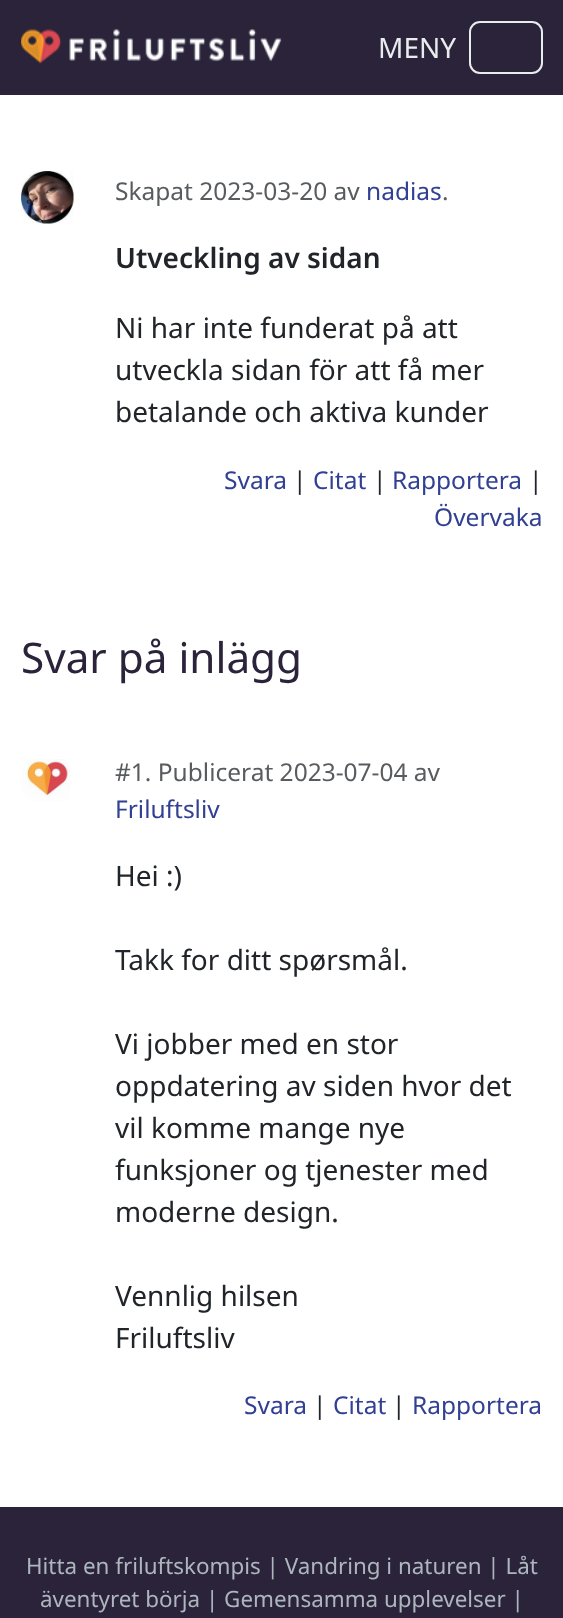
<?xml version="1.0" encoding="UTF-8"?>
<svg xmlns="http://www.w3.org/2000/svg" width="563" height="1618">
    <rect width="100%" height="100%" fill="#FFFFFF"/>
    <rect x="0" y="0" width="563" height="95" fill="#2A233A"/>
    <image x="21" y="29" width="261" height="35" href="img_01.png"/>
    <text x="378" y="58" font-family="Noto Sans" font-size="28" fill="#E9ECEF">MENY</text>
    <rect x="470" y="22" width="72" height="51" rx="10" fill="none" stroke="#E9ECEF" stroke-width="2"/>
    <image x="21" y="171" width="53" height="53" href="img_02.png"/>
    <text x="115" y="200" font-family="Noto Sans" font-size="24.5" fill="#595C5F">Skapat 2023-03-20 av</text>
    <text x="366" y="200" font-family="Noto Sans" font-size="24.5" fill="#324093">nadias</text>
    <text x="442" y="200" font-family="Noto Sans" font-size="24.5" fill="#595C5F">.</text>
    <text x="115" y="268" font-family="Noto Sans" font-size="28" font-weight="600" fill="#212529">Utveckling av sidan</text>
    <text font-family="Noto Sans" font-size="28" fill="#212529">
        <tspan x="115" y="338">Ni har inte funderat på att</tspan>
        <tspan x="115" y="380">utveckla sidan för att få mer</tspan>
        <tspan x="115" y="422">betalande och aktiva kunder</tspan>
    </text>
    <text x="224" y="489" font-family="Noto Sans" font-size="24.5" fill="#324093">Svara</text>
    <text x="293" y="489" font-family="Noto Sans" font-size="24.5" fill="#212529">|</text>
    <text x="313" y="489" font-family="Noto Sans" font-size="24.5" fill="#324093">Citat</text>
    <text x="373" y="489" font-family="Noto Sans" font-size="24.5" fill="#212529">|</text>
    <text x="392" y="489" font-family="Noto Sans" font-size="24.5" fill="#324093">Rapportera</text>
    <text x="529" y="489" font-family="Noto Sans" font-size="24.5" fill="#212529">|</text>
    <text x="434" y="526" font-family="Noto Sans" font-size="24.5" fill="#324093">Övervaka</text>
    <text x="21" y="673" font-family="Noto Sans" font-size="42.25" fill="#2A233A">Svar på inlägg</text>
    <image x="21" y="759" width="49" height="42" href="img_03.png"/>
    <text x="115" y="781" font-family="Noto Sans" font-size="24.5" fill="#595C5F">#1. Publicerat 2023-07-04 av</text>
    <text x="115" y="818" font-family="Noto Sans" font-size="24.5" fill="#324093">Friluftsliv</text>
    <text x="115" y="886" font-family="Noto Sans" font-size="28" fill="#212529">Hei :)</text>
    <text x="115" y="970" font-family="Noto Sans" font-size="28" fill="#212529">Takk for ditt spørsmål.</text>
    <text font-family="Noto Sans" font-size="28" fill="#212529">
        <tspan x="115" y="1054">Vi jobber med en stor</tspan>
        <tspan x="115" y="1096">oppdatering av siden hvor det</tspan>
        <tspan x="115" y="1138">vil komme mange nye</tspan>
        <tspan x="115" y="1180">funksjoner og tjenester med</tspan>
        <tspan x="115" y="1222">moderne design.</tspan>
    </text>
    <text font-family="Noto Sans" font-size="28" fill="#212529">
        <tspan x="115" y="1306">Vennlig hilsen</tspan>
        <tspan x="115" y="1348">Friluftsliv</tspan>
    </text>
    <text x="244" y="1414" font-family="Noto Sans" font-size="24.5" fill="#324093">Svara</text>
    <text x="313" y="1414" font-family="Noto Sans" font-size="24.5" fill="#212529">|</text>
    <text x="333" y="1414" font-family="Noto Sans" font-size="24.5" fill="#324093">Citat</text>
    <text x="392" y="1414" font-family="Noto Sans" font-size="24.5" fill="#212529">|</text>
    <text x="412" y="1414" font-family="Noto Sans" font-size="24.5" fill="#324093">Rapportera</text>
    <rect x="0" y="1507" width="563" height="111" fill="#2A233A"/>
    <text x="26" y="1574" font-family="Noto Sans" font-size="22.4" fill="#ADB5BD">Hitta en friluftskompis | Vandring i naturen | Låt</text>
    <text x="40" y="1607" font-family="Noto Sans" font-size="22.4" fill="#ADB5BD">äventyret börja | Gemensamma upplevelser |</text>
</svg>
